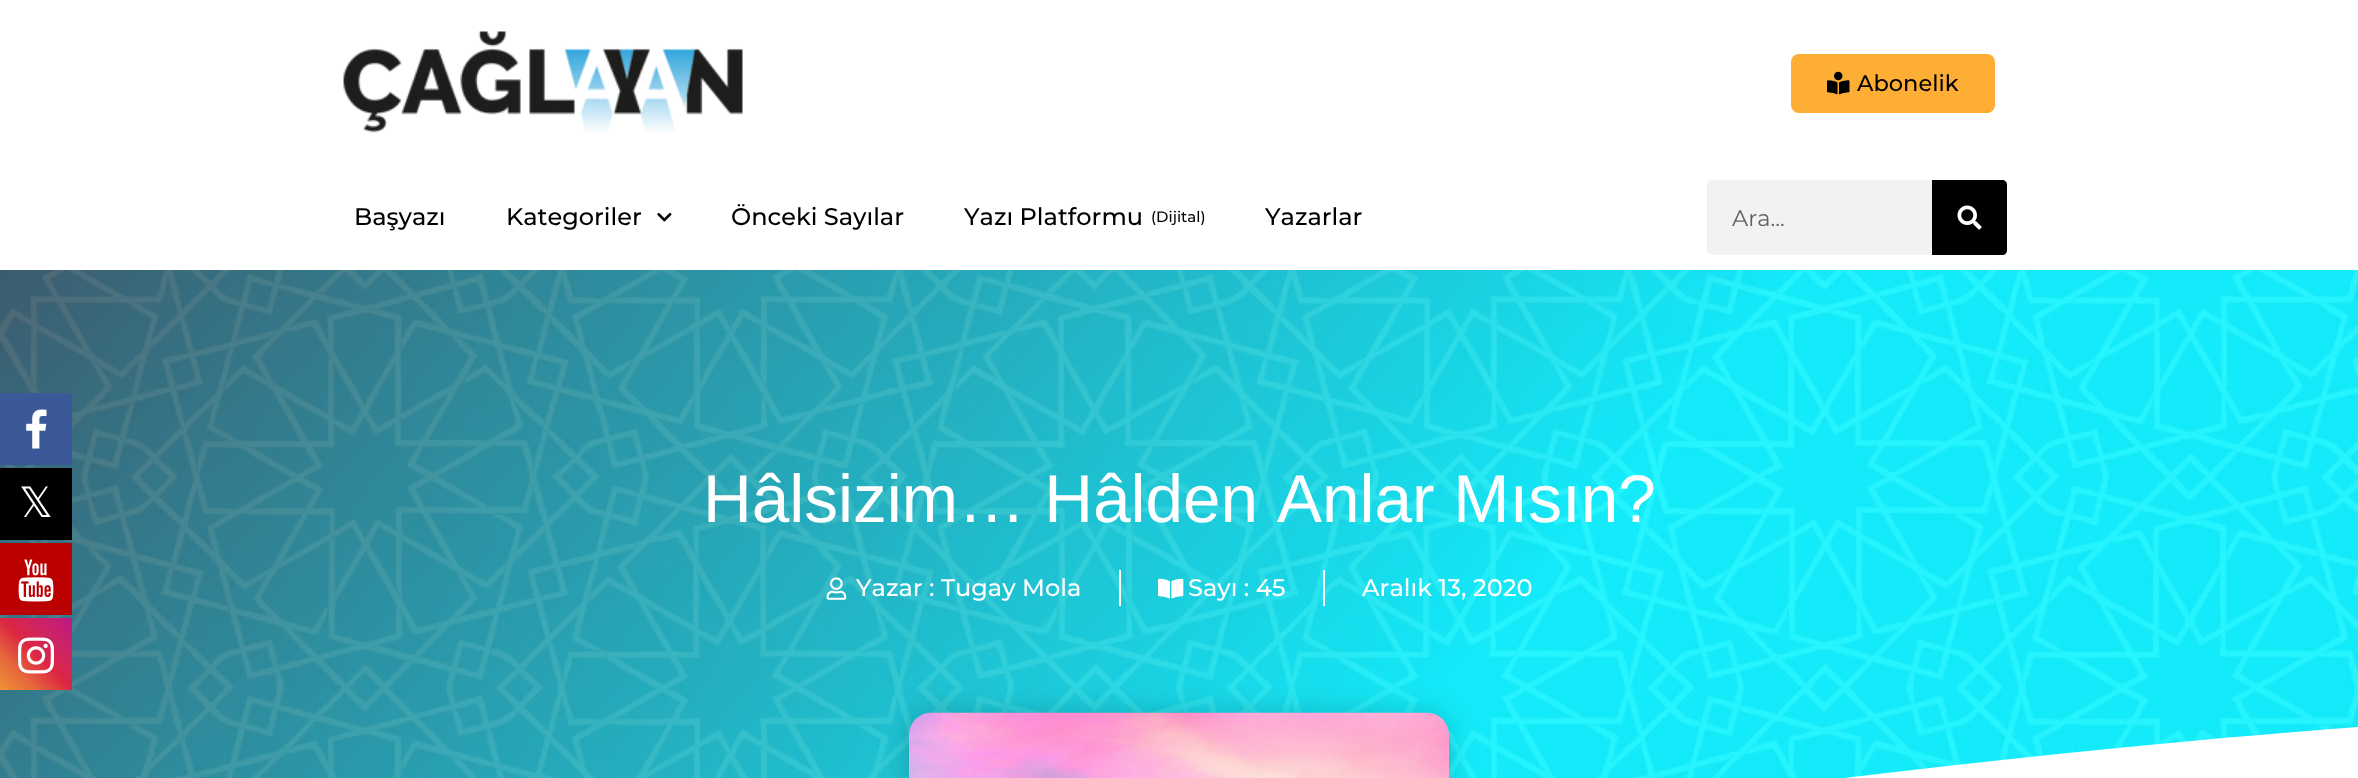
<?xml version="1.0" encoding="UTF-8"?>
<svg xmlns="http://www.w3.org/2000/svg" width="2358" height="778">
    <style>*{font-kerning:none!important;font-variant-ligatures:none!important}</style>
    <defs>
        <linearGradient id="g1" gradientUnits="userSpaceOnUse" x1="339" y1="-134" x2="2019" y2="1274"><stop offset="0" stop-color="#304C5C"/><stop offset="0.63" stop-color="#00F2FF"/></linearGradient>
        <linearGradient id="g2" gradientUnits="userSpaceOnUse" x1="0" y1="690" x2="72" y2="618"><stop offset="0" stop-color="#F09433"/><stop offset="0.25" stop-color="#E6683C"/><stop offset="0.5" stop-color="#DC2743"/><stop offset="0.75" stop-color="#CC2366"/><stop offset="1" stop-color="#BC1888"/></linearGradient>
        <filter id="blur1" x="-50%" y="-200%" width="200%" height="500%"><feGaussianBlur stdDeviation="15"/></filter>
    </defs>
    <rect width="100%" height="100%" fill="#FFFFFF"/>
    <image x="343" y="31" width="400" height="102" href="img_01.png"/>
    <rect x="1791" y="54" width="204" height="59" rx="8" fill="#FFAE35"/>
    <image x="1827" y="71" width="23" height="24" href="img_02.png"/>
    <text x="1857" y="91" font-family="Montserrat" font-size="22.5" font-weight="500" fill="#000000">Abonelik</text>
    <text x="354" y="225" font-family="Montserrat" font-size="24" font-weight="500" fill="#000000">Başyazı</text>
    <text x="506" y="225" font-family="Montserrat" font-size="24" font-weight="500" fill="#000000">Kategoriler</text>
    <image x="657" y="212" width="15" height="10" href="img_03.png"/>
    <text x="731" y="225" font-family="Montserrat" font-size="24" font-weight="500" fill="#000000">Önceki Sayılar</text>
    <text x="964" y="225" font-family="Montserrat" font-size="24" font-weight="500" fill="#000000">Yazı Platformu</text>
    <text x="1151" y="222" font-family="Montserrat" font-size="15" font-weight="500" fill="#000000">(Dijital)</text>
    <text x="1265" y="225" font-family="Montserrat" font-size="24" font-weight="500" fill="#000000">Yazarlar</text>
    <rect x="1707" y="180" width="300" height="75" rx="5" fill="#F1F2F3"/>
    <text x="1732" y="226" font-family="Montserrat" font-size="22.5" fill="#606161">Ara...</text>
    <path d="M 1932 180 H 2002 C 2005 180 2007 182 2007 185 V 250 C 2007 253 2005 255 2002 255 H 1932 Z" fill="#000000"/>
    <image x="1957" y="205" width="25" height="25" href="img_04.png"/>
    <rect x="0" y="270" width="2358" height="508" fill="url(#g1)"/>
    <image x="0" y="270" width="2358" height="508" href="img_08.png"/>
    <rect x="0" y="393" width="72" height="72" fill="#3B5998"/>
    <image x="26" y="409" width="21" height="40" href="img_05.png"/>
    <rect x="0" y="468" width="72" height="72" fill="#000000"/>
    <text x="19" y="517" font-family="DejaVu Sans" font-size="42" fill="#FFFFFF">𝕏</text>
    <rect x="0" y="543" width="72" height="72" fill="#BB0000"/>
    <image x="18" y="559" width="36" height="43" href="img_06.png"/>
    <rect x="0" y="618" width="72" height="72" fill="url(#g2)"/>
    <image x="18" y="637" width="36" height="37" href="img_07.png"/>
    <text x="703" y="522" font-family="Liberation Sans" font-size="67.5" fill="#FFFFFF">Hâlsizim… Hâlden Anlar Mısın?</text>
    <image x="826" y="577" width="21" height="23" href="img_09.png"/>
    <text x="856" y="596" font-family="Montserrat" font-size="24" font-weight="500" fill="#FFFFFF">Yazar : Tugay Mola</text>
    <rect x="1119" y="570" width="2" height="36" fill="#FFFFFF"/>
    <image x="1158" y="578" width="26" height="21" href="img_10.png"/>
    <text x="1188" y="596" font-family="Montserrat" font-size="24" font-weight="500" fill="#FFFFFF">Sayı : 45</text>
    <rect x="1323" y="570" width="2" height="36" fill="#FFFFFF"/>
    <text x="1362" y="596" font-family="Montserrat" font-size="24" font-weight="500" fill="#FFFFFF">Aralık 13, 2020</text>
    <path d="M 700 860 C 839 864 1016 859 1163 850 C 1308 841 1598 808 1779 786 C 2244 728 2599 706 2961 697 C 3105 693 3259 690 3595 701 C 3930 712 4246 747 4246 747 V 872 H -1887 V 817 C -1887 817 -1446 758 -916 762 C -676 763 -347 774 -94 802 C 36 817 226 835 395 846 C 561 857 637 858 700 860 Z" fill="#FFFFFF"/>
    <rect x="909" y="713" width="540" height="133" rx="23" fill="#000000" fill-opacity="0.2" filter="url(#blur1)"/>
    <image x="909" y="712" width="540" height="66" href="img_11.png"/>
</svg>
